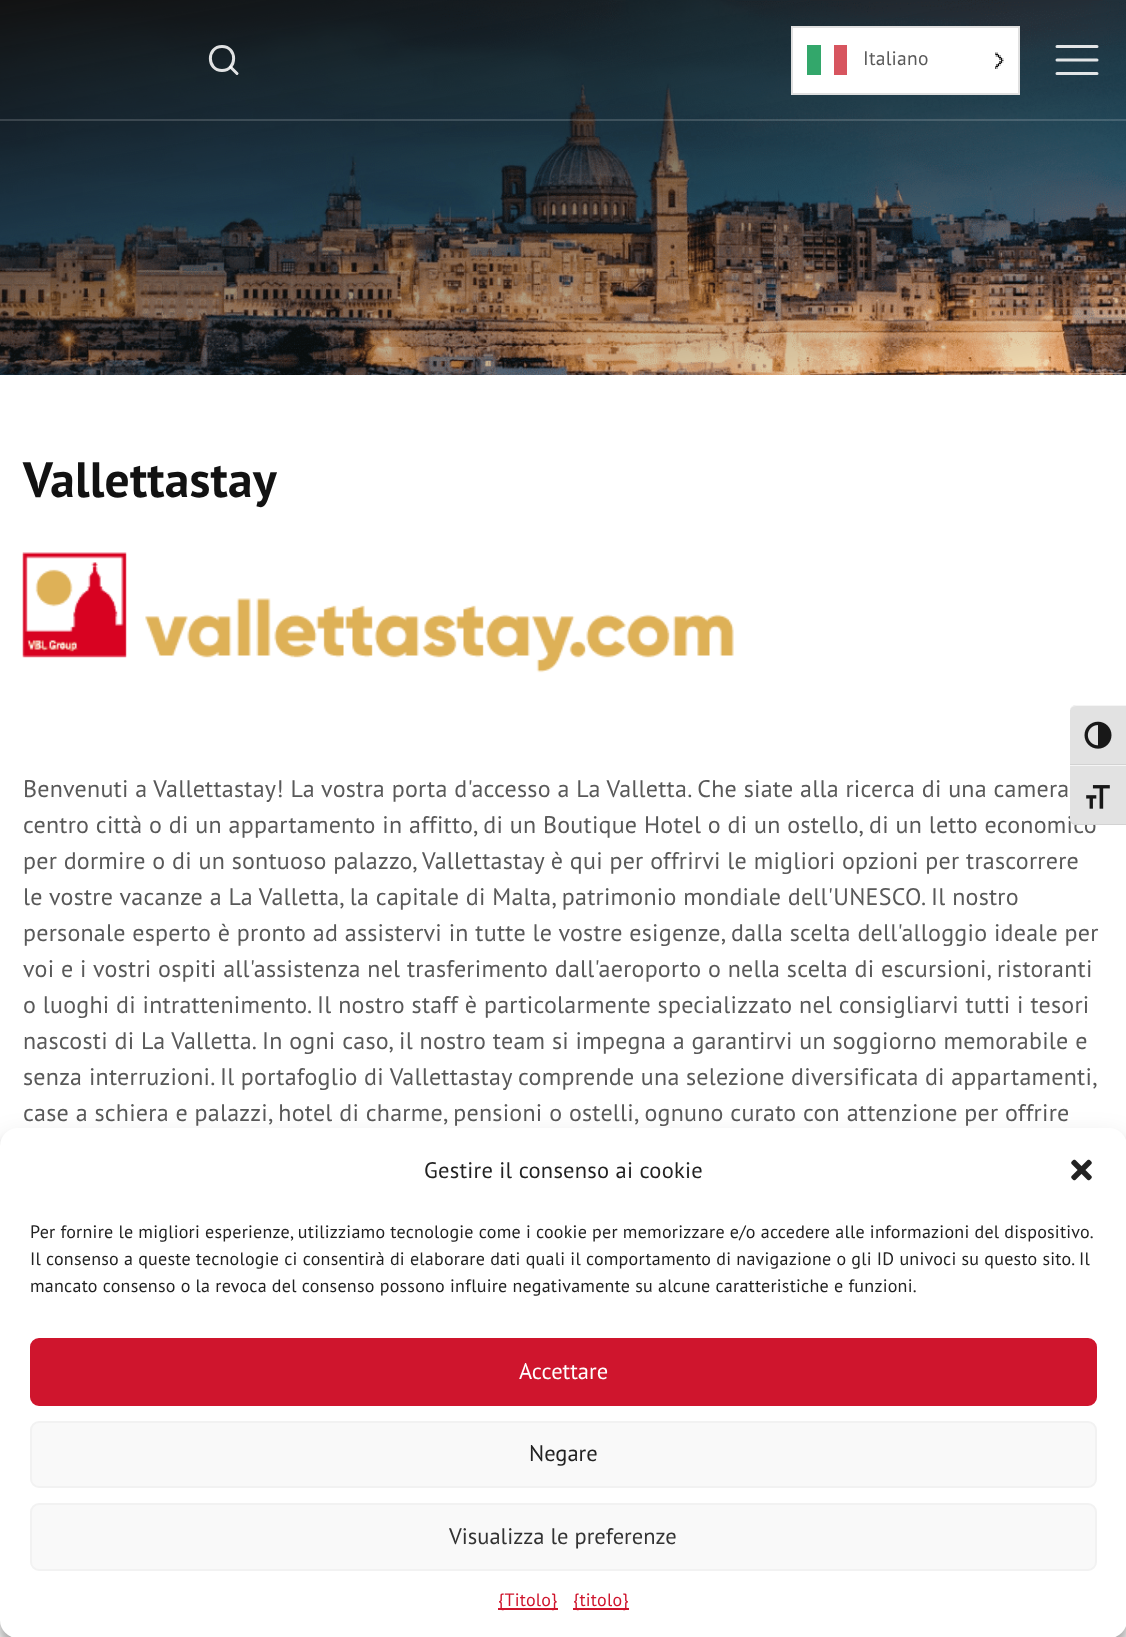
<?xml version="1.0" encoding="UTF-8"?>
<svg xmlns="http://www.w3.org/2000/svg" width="1126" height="1637">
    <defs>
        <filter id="blur1" x="-50%" y="-200%" width="200%" height="500%"><feGaussianBlur stdDeviation="4.5"/></filter>
        <filter id="blur2" x="-50%" y="-200%" width="200%" height="500%"><feGaussianBlur stdDeviation="15"/></filter>
    </defs>
    <rect width="100%" height="100%" fill="#FFFFFF"/>
    <image x="0" y="0" width="1126" height="375" href="img_02.png"/>
    <rect x="0" y="119" width="1126" height="2" fill="#FFFFFF" fill-opacity="0.16"/>
    <path d="M 222 70.5 C 237.5 70.5 237.5 46.5 222 46.5 C 206.5 46.5 206.5 70.5 222 70.5 Z" fill="none" stroke="#FFFFFF" stroke-opacity="0.87" stroke-width="3" stroke-linecap="round" stroke-linejoin="round"/>
    <path d="M 237 73.5 L 230.5 67" fill="none" stroke="#FFFFFF" stroke-opacity="0.87" stroke-width="3" stroke-linecap="round" stroke-linejoin="round"/>
    <rect x="792" y="27" width="227" height="67" fill="#FFFFFF" stroke="#E0E0E0" stroke-width="2"/>
    <rect x="807" y="45" width="14" height="30" fill="#009246"/>
    <rect x="834" y="45" width="13" height="30" fill="#CE2B37"/>
    <rect x="807" y="45" width="40" height="30" fill="#FFFFFF" fill-opacity="0.2"/>
    <text x="863" y="65" font-family="PT Sans" font-size="19.5" letter-spacing="0.24" fill="#595959">Italiano</text>
    <image x="995" y="52" width="9" height="17" href="img_01.png"/>
    <path d="M 1057 60 H 1097 M 1057 46.5 H 1097 M 1057 73.5 H 1097" fill="none" stroke="#FFFFFF" stroke-opacity="0.87" stroke-width="3" stroke-linecap="round" stroke-linejoin="round"/>
    <text x="23" y="497" font-family="PT Sans" font-size="49.5" font-weight="700" letter-spacing="0.24" fill="#121212">Vallettastay</text>
    <image x="22" y="552" width="712" height="121" href="img_03.png"/>
    <text font-family="PT Sans" font-size="24" letter-spacing="0.24" fill="#595959">
        <tspan x="23" y="797">Benvenuti a Vallettastay! La vostra porta d'accesso a La Valletta. Che siate alla ricerca di una camera</tspan>
        <tspan x="23" y="833">centro città o di un appartamento in affitto, di un Boutique Hotel o di un ostello, di un letto economico</tspan>
        <tspan x="23" y="869">per dormire o di un sontuoso palazzo, Vallettastay è qui per offrirvi le migliori opzioni per trascorrere</tspan>
        <tspan x="23" y="905">le vostre vacanze a La Valletta, la capitale di Malta, patrimonio mondiale dell'UNESCO. Il nostro</tspan>
        <tspan x="23" y="941">personale esperto è pronto ad assistervi in tutte le vostre esigenze, dalla scelta dell'alloggio ideale per</tspan>
        <tspan x="23" y="977">voi e i vostri ospiti all'assistenza nel trasferimento dall'aeroporto o nella scelta di escursioni, ristoranti</tspan>
        <tspan x="23" y="1013">o luoghi di intrattenimento. Il nostro staff è particolarmente specializzato nel consigliarvi tutti i tesori</tspan>
        <tspan x="23" y="1049">nascosti di La Valletta. In ogni caso, il nostro team si impegna a garantirvi un soggiorno memorabile e</tspan>
        <tspan x="23" y="1085">senza interruzioni.</tspan>
    </text>
    <text x="220" y="1085" word-spacing="-0.25" font-family="PT Sans" font-size="24" letter-spacing="0.24" fill="#595959">Il portafoglio di Vallettastay comprende una selezione diversificata di appartamenti,</text>
    <text x="23" y="1121" font-family="PT Sans" font-size="24" letter-spacing="0.24" fill="#595959">case a schiera e palazzi, hotel di charme, pensioni o ostelli, ognuno curato con attenzione per offrire</text>
    <path d="M 1076 705 H 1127 V 765 H 1070 V 711 C 1070 707.5 1072.5 705 1076 705 Z" fill="#E2E2E2"/>
    <path d="M 1076 705 C 1072 705 1070 708 1070 711 C 1070 709 1072 706 1076 706 H 1126 V 705 Z" fill="#F5F5F5"/>
    <rect x="1070" y="764" width="56" height="1" fill="#D2D2D2"/>
    <image x="1084" y="721" width="28" height="28" href="img_04.png"/>
    <path d="M 1070 765 H 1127 V 825 H 1076 C 1072.5 825 1070 822.5 1070 819 Z" fill="#E2E2E2"/>
    <rect x="1070" y="765" width="56" height="1" fill="#F5F5F5"/>
    <path d="M 1126 825 V 824 H 1076 C 1072 824 1070 821 1070 819 C 1070 822 1072 825 1076 825 Z" fill="#D2D2D2"/>
    <image x="1086" y="785" width="24" height="24" href="img_05.png"/>
    <rect x="0" y="1137" width="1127" height="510" rx="18" fill="#000000" fill-opacity="0.23" filter="url(#blur1)"/>
    <rect x="0" y="1143" width="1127" height="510" rx="18" fill="#000000" fill-opacity="0.19" filter="url(#blur2)"/>
    <rect x="0" y="1128" width="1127" height="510" rx="18" fill="#FFFFFF"/>
    <text x="424" y="1178" font-family="PT Sans" font-size="22.5" letter-spacing="0.24" fill="#222222">Gestire il consenso ai cookie</text>
    <image x="1071" y="1159" width="21" height="22" href="img_06.png"/>
    <text font-family="PT Sans" font-size="18" letter-spacing="0.24" fill="#222222">
        <tspan x="30" y="1238">Per fornire le migliori esperienze, utilizziamo tecnologie come i cookie per memorizzare e/o accedere alle informazioni del dispositivo.</tspan>
        <tspan x="30" y="1265">Il consenso a queste tecnologie ci consentirà di elaborare dati quali il comportamento di navigazione o gli ID univoci su questo sito. Il</tspan>
        <tspan x="30" y="1292">mancato consenso o la revoca del consenso possono influire negativamente su alcune caratteristiche e funzioni.</tspan>
    </text>
    <rect x="31" y="1339" width="1065" height="66" rx="8" fill="#CF152D" stroke="#CF152D" stroke-width="2"/>
    <text x="519" y="1379" font-family="PT Sans" font-size="22.5" fill="#FFFFFF">Accettare</text>
    <rect x="31" y="1422" width="1065" height="65" rx="8" fill="#F9F9F9" stroke="#F2F2F2" stroke-width="2"/>
    <text x="529" y="1461" font-family="PT Sans" font-size="22.5" fill="#222222">Negare</text>
    <rect x="31" y="1504" width="1065" height="66" rx="8" fill="#F9F9F9" stroke="#F2F2F2" stroke-width="2"/>
    <text x="449" y="1544" font-family="PT Sans" font-size="22.5" fill="#333333">Visualizza le preferenze</text>
    <rect x="498" y="1608" width="60" height="2" fill="#CF152D"/>
    <text x="498" y="1606" font-family="PT Sans" font-size="18" letter-spacing="0.24" fill="#CF152D">{Titolo}</text>
    <rect x="573" y="1608" width="56" height="2" fill="#CF152D"/>
    <text x="573" y="1606" font-family="PT Sans" font-size="18" letter-spacing="0.24" fill="#CF152D">{titolo}</text>
</svg>
